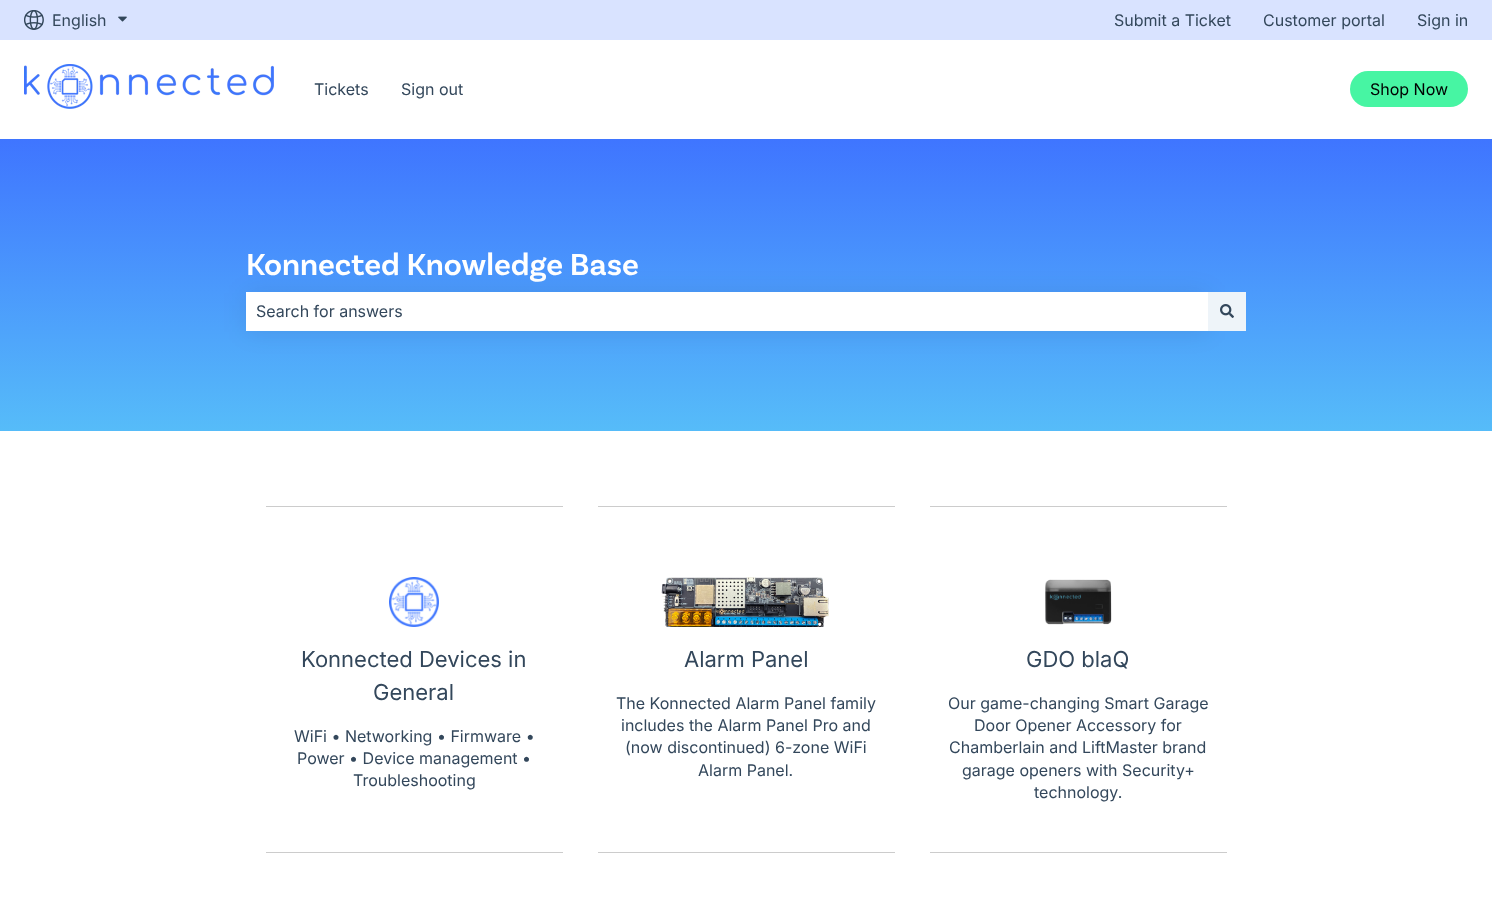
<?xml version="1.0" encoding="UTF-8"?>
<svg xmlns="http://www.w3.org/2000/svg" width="1492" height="911">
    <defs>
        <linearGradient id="g1" gradientUnits="userSpaceOnUse" x1="746" y1="139" x2="746" y2="431"><stop offset="0" stop-color="#3F75FF"/><stop offset="1" stop-color="#56BCF9"/></linearGradient>
        <filter id="blur1" x="-50%" y="-200%" width="200%" height="500%"><feGaussianBlur stdDeviation="12"/></filter>
    </defs>
    <rect width="100%" height="100%" fill="#FFFFFF"/>
    <rect x="0" y="0" width="1492" height="40" fill="#D9E3FF"/>
    <image x="24" y="10" width="20" height="20" href="img_01.png"/>
    <text x="52" y="26" font-family="Inter" font-size="16" fill="#33475B">English</text>
    <image x="118" y="16" width="9" height="6" href="img_02.png"/>
    <text x="1114" y="26" font-family="Inter" font-size="16" fill="#33475B">Submit a Ticket</text>
    <text x="1263" y="26" font-family="Inter" font-size="16" fill="#33475B">Customer portal</text>
    <text x="1417" y="26" font-family="Inter" font-size="16" fill="#33475B">Sign in</text>
    <image x="24" y="64" width="250" height="45" href="img_03.png"/>
    <text x="314" y="95" font-family="Inter" font-size="16" fill="#33475B">Tickets</text>
    <text x="401" y="95" font-family="Inter" font-size="16" fill="#33475B">Sign out</text>
    <rect x="1350" y="71" width="118" height="36" rx="18" fill="#47F5A3"/>
    <text x="1370" y="95" font-family="Inter" font-size="16" fill="#000000">Shop Now</text>
    <rect x="0" y="139" width="1492" height="292" fill="url(#g1)"/>
    <text x="246" y="275" font-family="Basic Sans" font-size="32" font-weight="600" fill="#FFFFFF">Konnected Knowledge Base</text>
    <rect x="246" y="293" width="962" height="39" fill="#000000" fill-opacity="0.08" filter="url(#blur1)"/>
    <rect x="246" y="292" width="962" height="39" fill="#FFFFFF"/>
    <text x="256" y="317" font-family="Inter" font-size="16" fill="#33475B">Search for answers</text>
    <rect x="1208" y="292" width="38" height="39" fill="#EEF4F9"/>
    <image x="1220" y="304" width="14" height="14" href="img_04.png"/>
    <rect x="266" y="506" width="297" height="1" fill="#CCCCCC"/>
    <image x="389" y="577" width="50" height="50" href="img_05.png"/>
    <text x="301" y="667" font-family="Inter" font-size="22" fill="#33475B">Konnected Devices in</text>
    <text x="373" y="700" font-family="Inter" font-size="22" fill="#33475B">General</text>
    <text x="294" y="742" font-family="Inter" font-size="16" fill="#33475B">WiFi • Networking • Firmware •</text>
    <text x="297" y="764" font-family="Inter" font-size="16" fill="#33475B">Power • Device management •</text>
    <text x="353" y="786" font-family="Inter" font-size="16" fill="#33475B">Troubleshooting</text>
    <rect x="598" y="506" width="297" height="1" fill="#CCCCCC"/>
    <image x="661" y="577" width="168" height="50" href="img_06.png"/>
    <text x="684" y="667" font-family="Inter" font-size="22" fill="#33475B">Alarm Panel</text>
    <text x="616" y="709" font-family="Inter" font-size="16" fill="#33475B">The Konnected Alarm Panel family</text>
    <text x="621" y="731" font-family="Inter" font-size="16" fill="#33475B">includes the Alarm Panel Pro and</text>
    <text x="625" y="753" font-family="Inter" font-size="16" fill="#33475B">(now discontinued) 6-zone WiFi</text>
    <text x="698" y="776" font-family="Inter" font-size="16" fill="#33475B">Alarm Panel.</text>
    <rect x="930" y="506" width="297" height="1" fill="#CCCCCC"/>
    <image x="1045" y="579" width="67" height="46" href="img_07.png"/>
    <text x="1026" y="667" font-family="Inter" font-size="22" fill="#33475B">GDO blaQ</text>
    <text x="948" y="709" font-family="Inter" font-size="16" fill="#33475B">Our game-changing Smart Garage</text>
    <text x="974" y="731" font-family="Inter" font-size="16" fill="#33475B">Door Opener Accessory for</text>
    <text x="949" y="753" font-family="Inter" font-size="16" fill="#33475B">Chamberlain and LiftMaster brand</text>
    <text x="962" y="776" font-family="Inter" font-size="16" fill="#33475B">garage openers with Security+</text>
    <text x="1034" y="798" font-family="Inter" font-size="16" fill="#33475B">technology.</text>
    <rect x="266" y="852" width="297" height="1" fill="#CCCCCC"/>
    <rect x="598" y="852" width="297" height="1" fill="#CCCCCC"/>
    <rect x="930" y="852" width="297" height="1" fill="#CCCCCC"/>
</svg>
